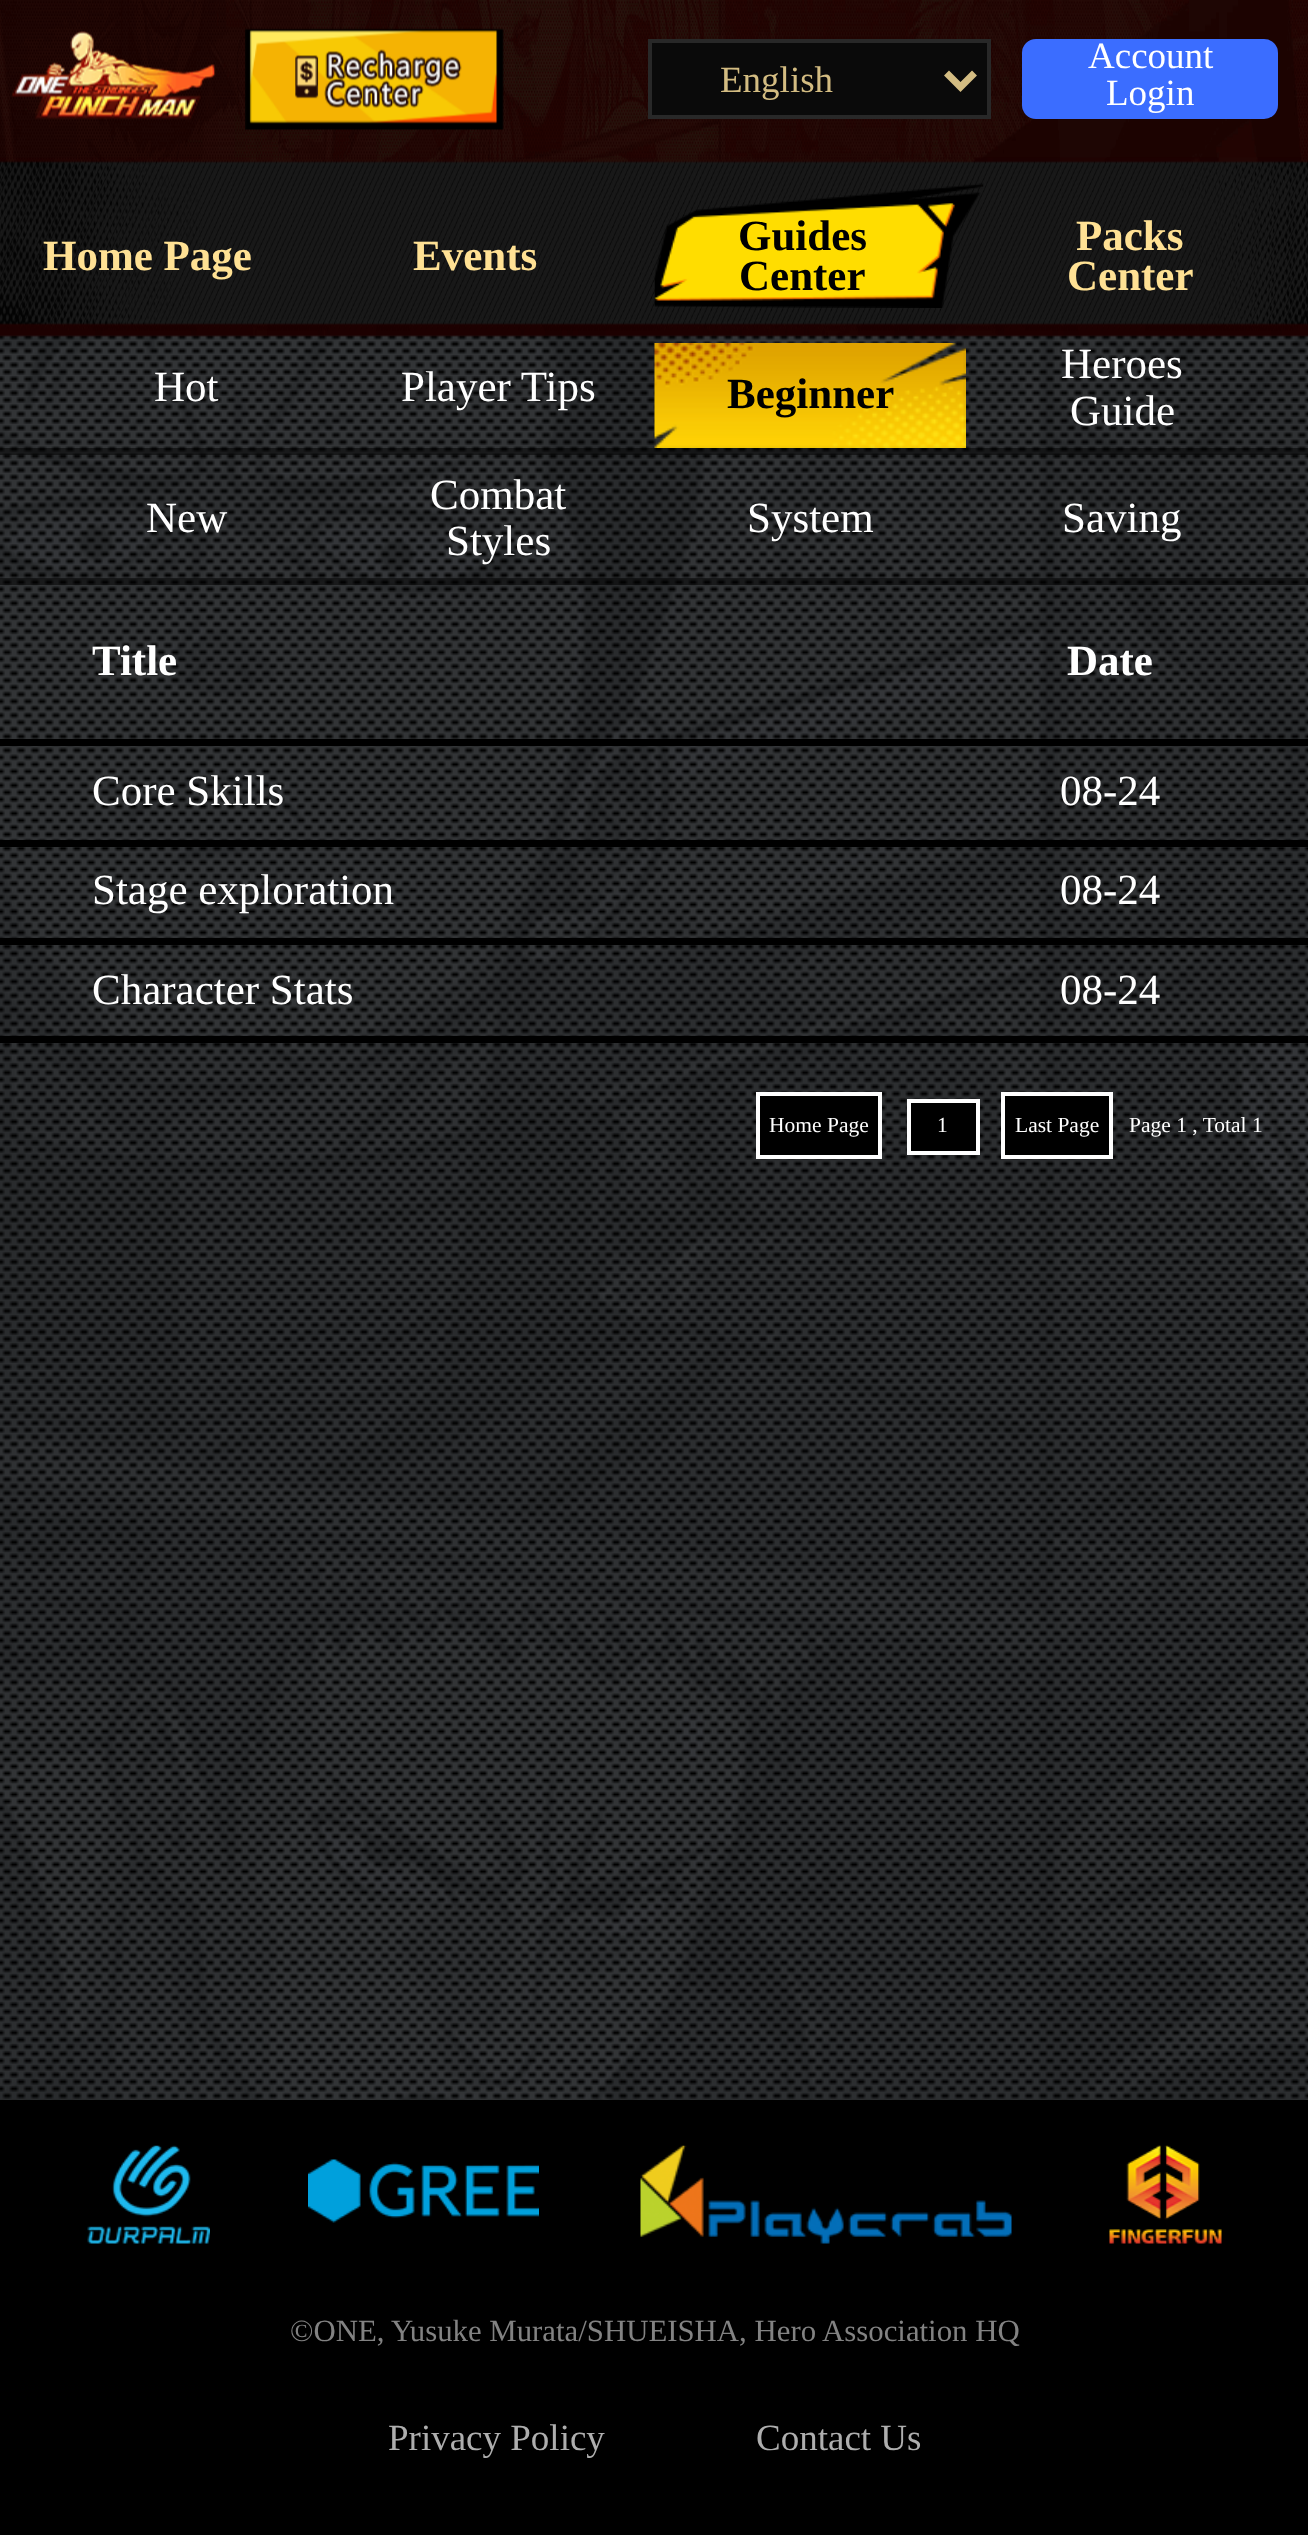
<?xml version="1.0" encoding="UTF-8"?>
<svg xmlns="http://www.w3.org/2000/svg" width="1308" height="2535">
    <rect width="100%" height="100%" fill="#FFFFFF"/>
    <image x="0" y="0" width="1308" height="158" href="img_01.png"/>
    <image x="11" y="31" width="205" height="89" href="img_02.png"/>
    <image x="245" y="28" width="259" height="102" href="img_03.png"/>
    <rect x="650" y="41" width="339" height="76" fill="#0A0A0A" stroke="#282828" stroke-width="4"/>
    <path d="M 946.5 73 L 960.5 87 L 974.5 73" fill="none" stroke="#D3BC82" stroke-width="7"/>
    <text x="720" y="92" font-family="Liberation Serif" font-size="37" fill="#D3BC82">English</text>
    <rect x="1022" y="39" width="256" height="80" rx="14" fill="#3B6DFF"/>
    <text x="1088" y="68" font-family="Liberation Serif" font-size="37" fill="#FFFFFF">Account</text>
    <text x="1106" y="105" font-family="Liberation Serif" font-size="37" fill="#FFFFFF">Login</text>
    <image x="0" y="335" width="1308" height="1765" href="img_06.png"/>
    <image x="0" y="157" width="1308" height="180" href="img_04.png"/>
    <text x="43" y="270" font-family="Liberation Serif" font-size="43" font-weight="700" fill="#FFE194">Home Page</text>
    <text x="413" y="270" font-family="Liberation Serif" font-size="43" font-weight="700" fill="#FFE194">Events</text>
    <image x="654" y="183" width="330" height="125" href="img_05.png"/>
    <text x="738" y="250" font-family="Liberation Serif" font-size="43" font-weight="700" fill="#000000">Guides</text>
    <text x="739" y="290" font-family="Liberation Serif" font-size="43" font-weight="700" fill="#000000">Center</text>
    <text x="1076" y="250" font-family="Liberation Serif" font-size="43" font-weight="700" fill="#FFE194">Packs</text>
    <text x="1067" y="290" font-family="Liberation Serif" font-size="43" font-weight="700" fill="#FFE194">Center</text>
    <text x="154" y="401" font-family="Liberation Serif" font-size="43" fill="#FFFFFF">Hot</text>
    <text x="401" y="401" font-family="Liberation Serif" font-size="43" fill="#FFFFFF">Player Tips</text>
    <image x="654" y="343" width="312" height="105" href="img_07.png"/>
    <text x="727" y="408" font-family="Liberation Serif" font-size="43" font-weight="700" fill="#000000">Beginner</text>
    <text x="1061" y="378" font-family="Liberation Serif" font-size="43" fill="#FFFFFF">Heroes</text>
    <text x="1070" y="425" font-family="Liberation Serif" font-size="43" fill="#FFFFFF">Guide</text>
    <text x="146" y="532" font-family="Liberation Serif" font-size="43" fill="#FFFFFF">New</text>
    <text x="430" y="509" font-family="Liberation Serif" font-size="43" fill="#FFFFFF">Combat</text>
    <text x="446" y="555" font-family="Liberation Serif" font-size="43" fill="#FFFFFF">Styles</text>
    <text x="747" y="532" font-family="Liberation Serif" font-size="43" fill="#FFFFFF">System</text>
    <text x="1062" y="532" font-family="Liberation Serif" font-size="43" fill="#FFFFFF">Saving</text>
    <rect x="0" y="739" width="1308" height="7" fill="#000000"/>
    <text x="92" y="675" font-family="Liberation Serif" font-size="43" font-weight="700" fill="#FFFFFF">Title</text>
    <text x="1067" y="675" font-family="Liberation Serif" font-size="43" font-weight="700" fill="#FFFFFF">Date</text>
    <rect x="0" y="840" width="1308" height="7" fill="#000000"/>
    <text x="92" y="805" font-family="Liberation Serif" font-size="43" fill="#FFFFFF">Core Skills</text>
    <text x="1060" y="805" font-family="Liberation Serif" font-size="43" fill="#FFFFFF">08-24</text>
    <rect x="0" y="938" width="1308" height="7" fill="#000000"/>
    <text x="92" y="904" font-family="Liberation Serif" font-size="43" fill="#FFFFFF">Stage exploration</text>
    <text x="1060" y="904" font-family="Liberation Serif" font-size="43" fill="#FFFFFF">08-24</text>
    <rect x="0" y="1036" width="1308" height="7" fill="#000000"/>
    <text x="92" y="1004" font-family="Liberation Serif" font-size="43" fill="#FFFFFF">Character Stats</text>
    <text x="1060" y="1004" font-family="Liberation Serif" font-size="43" fill="#FFFFFF">08-24</text>
    <rect x="758" y="1094" width="122" height="63" fill="#000000" stroke="#FFFFFF" stroke-width="4"/>
    <text x="769" y="1132" font-family="Liberation Serif" font-size="21.5" fill="#FFFFFF">Home Page</text>
    <rect x="909" y="1101" width="69" height="52" fill="#000000" stroke="#FFFFFF" stroke-width="4"/>
    <text x="937" y="1132" font-family="Liberation Serif" font-size="21.5" fill="#FFFFFF">1</text>
    <rect x="1003" y="1094" width="108" height="63" fill="#000000" stroke="#FFFFFF" stroke-width="4"/>
    <text x="1015" y="1132" font-family="Liberation Serif" font-size="21.5" fill="#FFFFFF">Last Page</text>
    <text x="1129" y="1132" font-family="Liberation Serif" font-size="21.5" fill="#FFFFFF">Page 1 , Total 1</text>
    <rect x="0" y="448" width="1308" height="7" fill="#000000" fill-opacity="0.5"/>
    <rect x="0" y="578" width="1308" height="7" fill="#000000" fill-opacity="0.5"/>
    <rect x="0" y="2100" width="1308" height="435" fill="#000000"/>
    <image x="87" y="2145" width="123" height="99" href="img_08.png"/>
    <image x="308" y="2159" width="231" height="64" href="img_09.png"/>
    <image x="640" y="2145" width="372" height="99" href="img_10.png"/>
    <image x="1109" y="2145" width="113" height="99" href="img_11.png"/>
    <text x="290" y="2341" font-family="Liberation Serif" font-size="30.8" fill="#828282">©ONE, Yusuke Murata/SHUEISHA, Hero Association HQ</text>
    <text x="388" y="2450" font-family="Liberation Serif" font-size="37" fill="#AEAEAE">Privacy Policy</text>
    <text x="756" y="2450" font-family="Liberation Serif" font-size="37" fill="#AEAEAE">Contact Us</text>
</svg>
